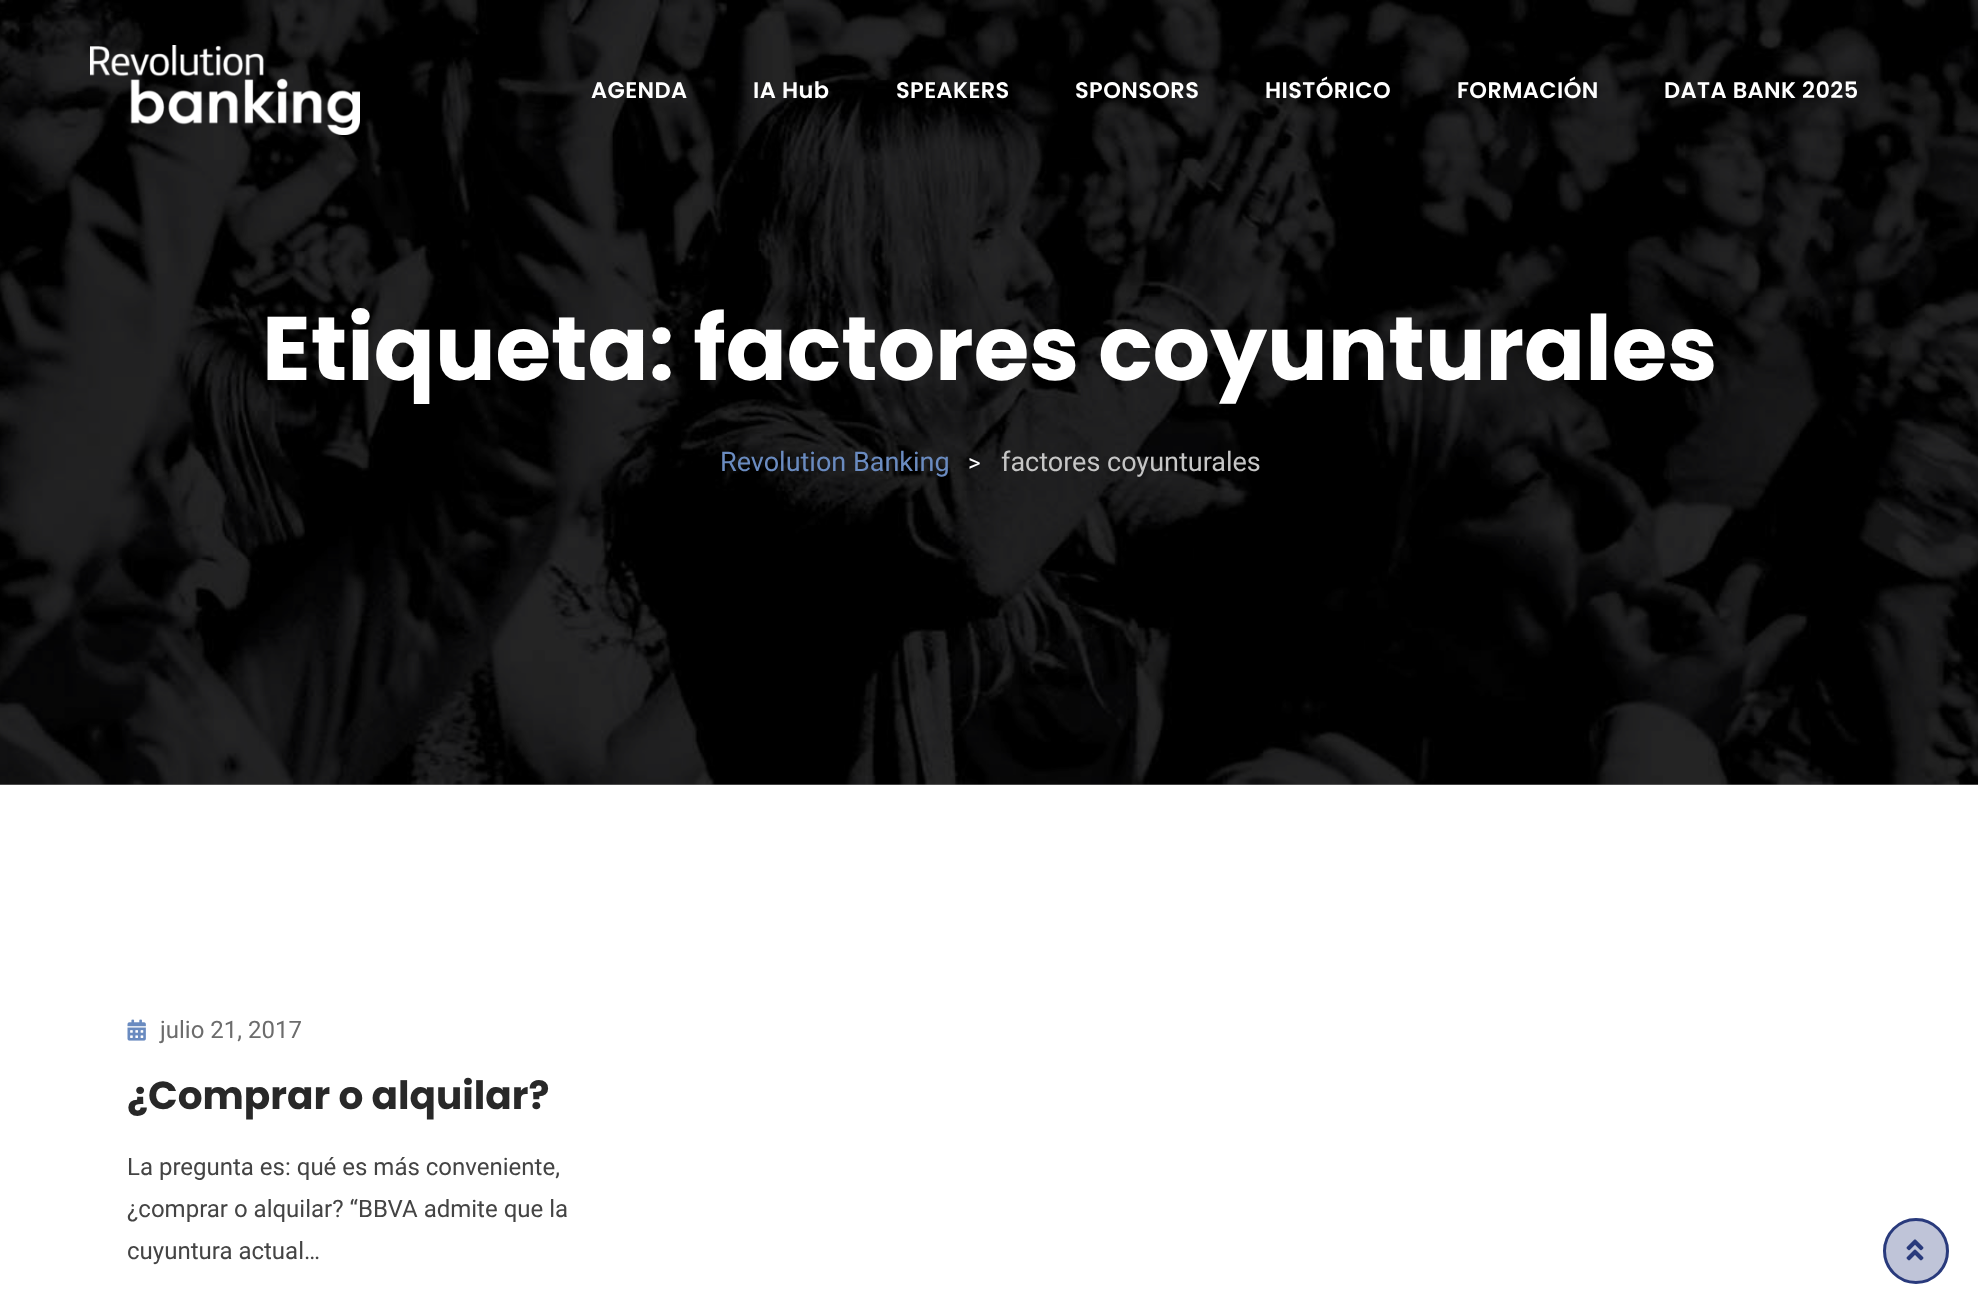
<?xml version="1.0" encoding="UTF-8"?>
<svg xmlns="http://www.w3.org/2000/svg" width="1978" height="1291">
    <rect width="100%" height="100%" fill="#FFFFFF"/>
    <rect x="0" y="784" width="1978" height="1" fill="#808080"/>
    <image x="0" y="0" width="1978" height="785" href="img_02.png"/>
    <image x="90" y="45" width="270" height="90" href="img_01.png"/>
    <text x="591" y="98" font-family="Poppins" font-size="22.5" font-weight="600" letter-spacing="0.4" fill="#FFFFFF">AGENDA</text>
    <text x="753" y="98" font-family="Poppins" font-size="22.5" font-weight="600" letter-spacing="0.4" fill="#FFFFFF">IA Hub</text>
    <text x="896" y="98" font-family="Poppins" font-size="22.5" font-weight="600" letter-spacing="0.4" fill="#FFFFFF">SPEAKERS</text>
    <text x="1075" y="98" font-family="Poppins" font-size="22.5" font-weight="600" letter-spacing="0.4" fill="#FFFFFF">SPONSORS</text>
    <text x="1265" y="98" font-family="Poppins" font-size="22.5" font-weight="600" letter-spacing="0.4" fill="#FFFFFF">HISTÓRICO</text>
    <text x="1457" y="98" font-family="Poppins" font-size="22.5" font-weight="600" letter-spacing="0.4" fill="#FFFFFF">FORMACIÓN</text>
    <text x="1664" y="98" font-family="Poppins" font-size="22.5" font-weight="600" letter-spacing="0.4" fill="#FFFFFF">DATA BANK 2025</text>
    <text x="262" y="380" font-family="Poppins" font-size="90" font-weight="700" fill="#FFFFFF">Etiqueta: factores coyunturales</text>
    <text x="720" y="471" font-family="Roboto" font-size="27" fill="#6A8BC0">Revolution Banking</text>
    <text x="968" y="471" font-family="Roboto" font-size="24" fill="#FFFFFF">&gt;</text>
    <text x="1001" y="471" font-family="Roboto" font-size="27" fill="#C6C6C6">factores coyunturales</text>
    <image x="127" y="1019" width="19" height="22" href="img_03.png"/>
    <text x="160" y="1038" font-family="Roboto" font-size="24" fill="#6C6C6C">julio 21, 2017</text>
    <text x="127" y="1109" font-family="Poppins" font-size="39" font-weight="700" fill="#282828">¿Comprar o alquilar?</text>
    <text font-family="Roboto" font-size="24" fill="#444444">
        <tspan x="127" y="1175">La pregunta es: qué es más conveniente,</tspan>
        <tspan x="127" y="1217">¿comprar o alquilar? “BBVA admite que la</tspan>
        <tspan x="127" y="1259">cuyuntura actual…</tspan>
    </text>
    <circle cx="1916" cy="1251" r="31.5" fill="#BFC4D8" stroke="#293A7C" stroke-width="3"/>
    <image x="1906" y="1239" width="18" height="22" href="img_04.png"/>
</svg>
